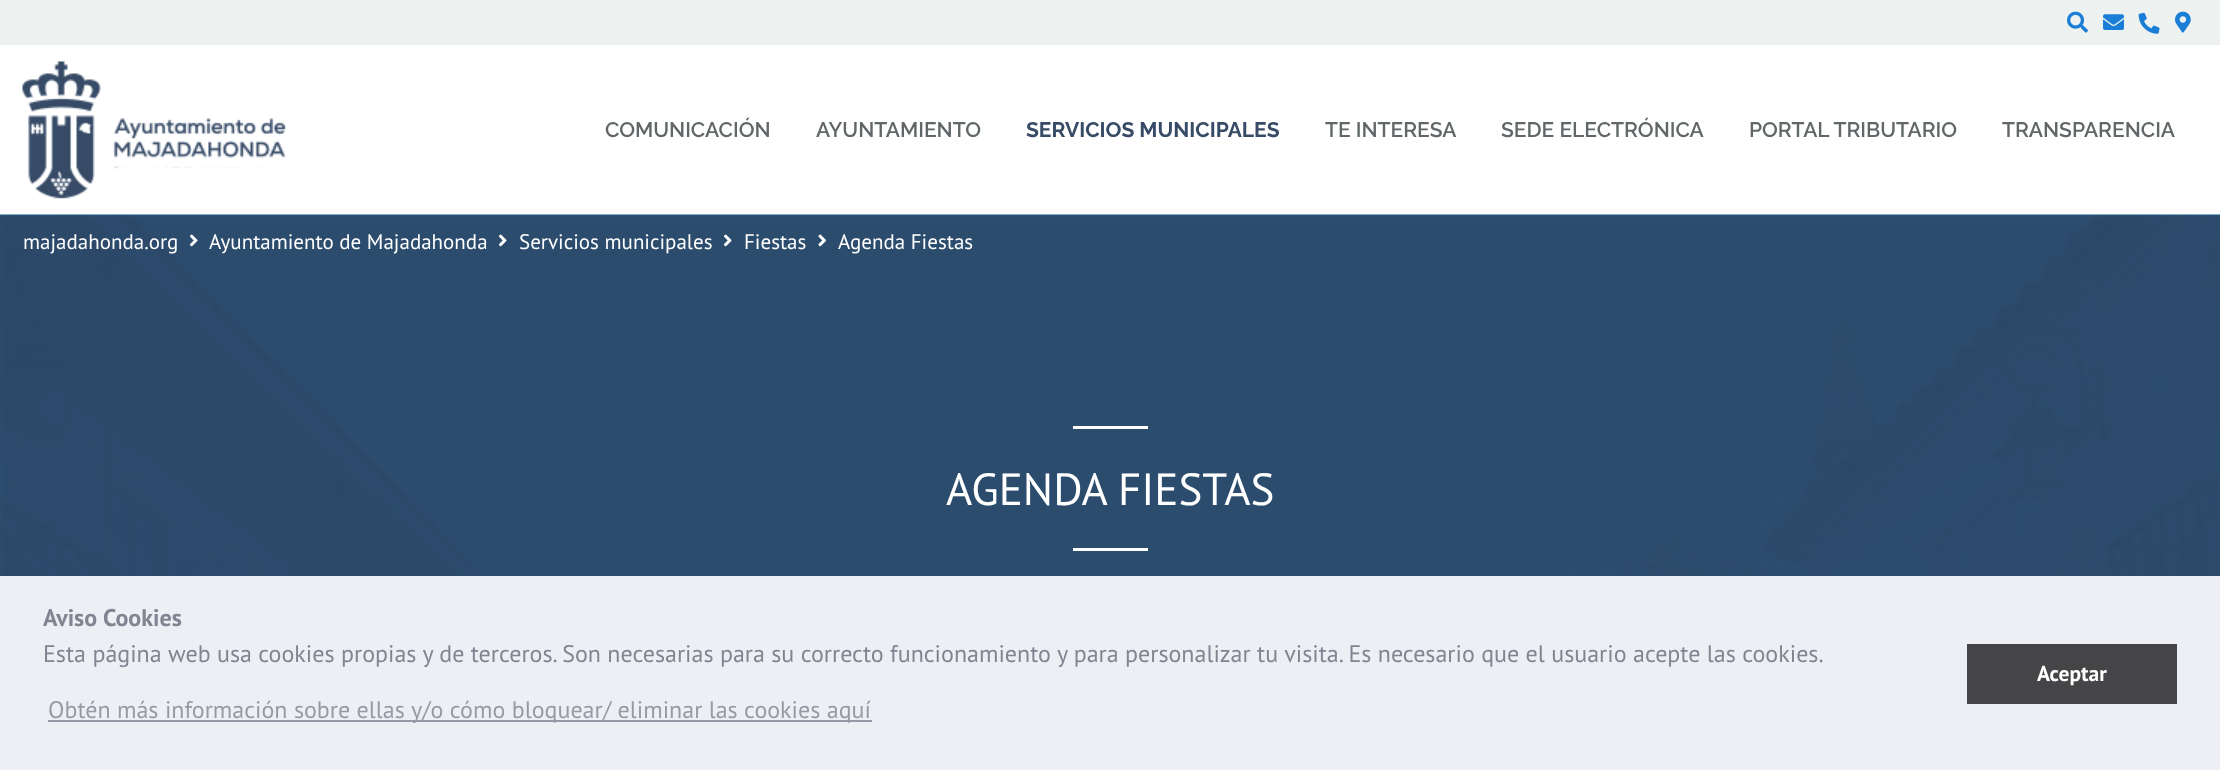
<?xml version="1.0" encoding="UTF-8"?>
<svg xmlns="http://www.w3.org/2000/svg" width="2220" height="770">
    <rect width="100%" height="100%" fill="#EDF1F0"/>
    <image x="2067" y="11" width="21" height="22" href="img_01.png"/>
    <image x="2103" y="14" width="21" height="16" href="img_02.png"/>
    <image x="2138" y="12" width="22" height="22" href="img_03.png"/>
    <image x="2175" y="11" width="16" height="22" href="img_04.png"/>
    <rect x="0" y="45" width="2220" height="170" fill="#FFFFFF"/>
    <image x="22" y="61" width="264" height="138" href="img_05.png"/>
    <text x="605" y="137" font-family="Raleway" font-size="21" font-weight="600" fill="#616768">COMUNICACIÓN</text>
    <text x="816" y="137" font-family="Raleway" font-size="21" font-weight="600" fill="#616768">AYUNTAMIENTO</text>
    <text x="1026" y="137" font-family="Raleway" font-size="21" font-weight="700" fill="#374B67">SERVICIOS MUNICIPALES</text>
    <text x="1325" y="137" font-family="Raleway" font-size="21" font-weight="600" fill="#616768">TE INTERESA</text>
    <text x="1501" y="137" font-family="Raleway" font-size="21" font-weight="600" fill="#616768">SEDE ELECTRÓNICA</text>
    <text x="1749" y="137" font-family="Raleway" font-size="21" font-weight="600" fill="#616768">PORTAL TRIBUTARIO</text>
    <text x="2002" y="137" font-family="Raleway" font-size="21" font-weight="600" fill="#616768">TRANSPARENCIA</text>
    <image x="0" y="214" width="2220" height="362" href="img_08.png"/>
    <text x="23" y="249" font-family="PT Sans" font-size="21" fill="#FFFFFF">majadahonda.org</text>
    <image x="190" y="234" width="8" height="13" href="img_06.png"/>
    <text x="209" y="249" font-family="PT Sans" font-size="21" fill="#FFFFFF">Ayuntamiento de Majadahonda</text>
    <image x="499" y="234" width="8" height="13" href="img_06.png"/>
    <text x="519" y="249" font-family="PT Sans" font-size="21" fill="#FFFFFF">Servicios municipales</text>
    <image x="724" y="234" width="8" height="13" href="img_06.png"/>
    <text x="744" y="249" font-family="PT Sans" font-size="21" fill="#FFFFFF">Fiestas</text>
    <image x="818" y="234" width="8" height="13" href="img_07.png"/>
    <text x="838" y="249" font-family="PT Sans" font-size="21" fill="#FFFFFF">Agenda Fiestas</text>
    <rect x="1073" y="426" width="75" height="3" fill="#FFFFFF"/>
    <text x="946" y="505" font-family="PT Sans" font-size="45" fill="#FFFFFF">AGENDA FIESTAS</text>
    <rect x="1073" y="548" width="75" height="3" fill="#FFFFFF"/>
    <rect x="0" y="576" width="2220" height="194" fill="#EDEFF5"/>
    <text x="43" y="626" font-family="PT Sans" font-size="24" font-weight="700" fill="#838391">Aviso Cookies</text>
    <text x="43" y="662" font-family="PT Sans" font-size="24" fill="#838391">Esta página web usa cookies propias y de terceros. Son necesarias para su correcto funcionamiento y para personalizar tu visita. Es necesario que el usuario acepte las cookies.</text>
    <rect x="48" y="720" width="824" height="2" fill="#9899A5"/>
    <text x="48" y="718" font-family="PT Sans" font-size="24" fill="#9899A5">Obtén más información sobre ellas y/o cómo bloquear/ eliminar las cookies aquí</text>
    <rect x="1967" y="644" width="210" height="60" fill="#454548"/>
    <text x="2037" y="681" font-family="PT Sans" font-size="21.5" font-weight="700" fill="#FFFFFF">Aceptar</text>
</svg>
